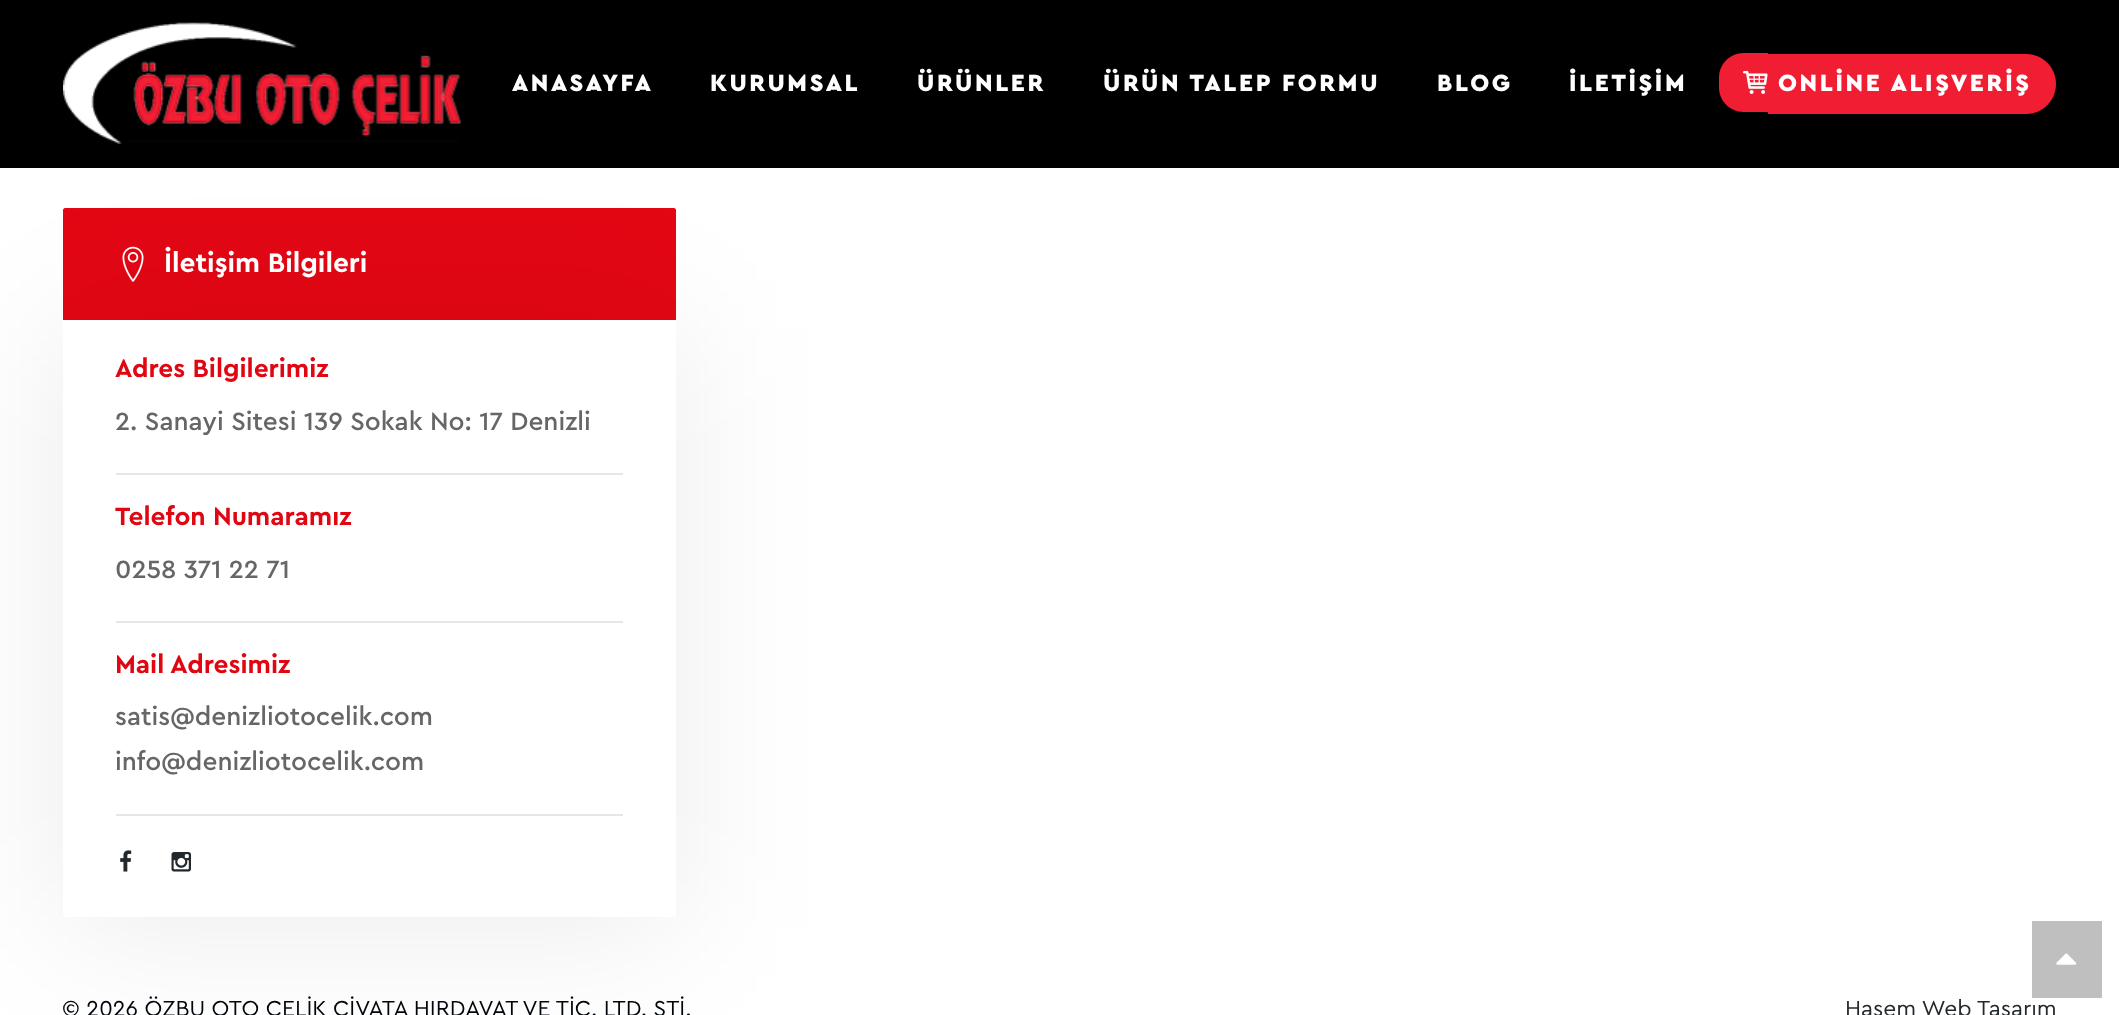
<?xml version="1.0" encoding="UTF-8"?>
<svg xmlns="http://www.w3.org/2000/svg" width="2119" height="1015">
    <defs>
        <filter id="blur1" x="-50%" y="-200%" width="200%" height="500%"><feGaussianBlur stdDeviation="72.5"/></filter>
    </defs>
    <rect width="100%" height="100%" fill="#FFFFFF"/>
    <path d="M 65 208 H 674 C 675 208 676 209 676 210 V 320 H 63 V 210 C 63 209 64 208 65 208 Z" fill="#E30613"/>
    <rect x="63" y="329" width="613" height="597" rx="2" fill="#282828" fill-opacity="0.08" filter="url(#blur1)"/>
    <rect x="0" y="0" width="2119" height="168" fill="#000000"/>
    <image x="63" y="22" width="398" height="123" href="img_01.png"/>
    <text x="512" y="91" font-family="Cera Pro" font-size="24.5" font-weight="900" letter-spacing="2.6" fill="#FFFFFF">ANASAYFA</text>
    <text x="710" y="91" font-family="Cera Pro" font-size="24.5" font-weight="900" letter-spacing="2.6" fill="#FFFFFF">KURUMSAL</text>
    <text x="917" y="91" font-family="Cera Pro" font-size="24.5" font-weight="900" letter-spacing="2.6" fill="#FFFFFF">ÜRÜNLER</text>
    <text x="1103" y="91" font-family="Cera Pro" font-size="24.5" font-weight="900" letter-spacing="2.6" fill="#FFFFFF">ÜRÜN TALEP FORMU</text>
    <text x="1437" y="91" font-family="Cera Pro" font-size="24.5" font-weight="900" letter-spacing="2.6" fill="#FFFFFF">BLOG</text>
    <text x="1569" y="91" font-family="Cera Pro" font-size="24.5" font-weight="900" letter-spacing="2.6" fill="#FFFFFF">İLETİŞİM</text>
    <path d="M 1743.5 53 H 1768 V 112 H 1743.5 C 1730 112 1719 101 1719 87.5 V 77.5 C 1719 64 1730 53 1743.5 53 Z" fill="#F01D33"/>
    <path d="M 1768 54 H 2026 C 2042.5 54 2056 67.5 2056 84 C 2056 100.5 2042.5 114 2026 114 H 1768 Z" fill="#F01D33"/>
    <image x="1743" y="70" width="25" height="24" href="img_02.png"/>
    <text x="1778" y="91" font-family="Cera Pro" font-size="24.5" font-weight="900" letter-spacing="2.6" fill="#FFFFFF">ONLİNE ALIŞVERİŞ</text>
    <image x="122" y="246" width="22" height="36" href="img_03.png"/>
    <text x="164" y="272" font-family="Cera Pro" font-size="28" font-weight="700" fill="#FFFFFF">İletişim Bilgileri</text>
    <path d="M 63 320 H 676 V 915 C 676 916 675 917 674 917 H 65 C 64 917 63 916 63 915 Z" fill="#FFFFFF"/>
    <text x="115" y="377" font-family="Cera Pro" font-size="26.25" font-weight="700" fill="#E00713">Adres Bilgilerimiz</text>
    <text x="115" y="430" font-family="Cera Pro" font-size="26.25" font-weight="500" fill="#666666">2. Sanayi Sitesi 139 Sokak No: 17 Denizli</text>
    <rect x="116" y="473" width="507" height="2" fill="#E6E6E6"/>
    <text x="115" y="525" font-family="Cera Pro" font-size="26.25" font-weight="700" fill="#E00713">Telefon Numaramız</text>
    <text x="115" y="578" font-family="Cera Pro" font-size="26.25" font-weight="500" fill="#666666">0258 371 22 71</text>
    <rect x="116" y="621" width="507" height="2" fill="#E6E6E6"/>
    <text x="115" y="673" font-family="Cera Pro" font-size="26.25" font-weight="700" fill="#E00713">Mail Adresimiz</text>
    <text font-family="Cera Pro" font-size="26.25" font-weight="500" fill="#666666">
        <tspan x="115" y="725">satis@denizliotocelik.com</tspan>
        <tspan x="115" y="770">info@denizliotocelik.com</tspan>
    </text>
    <rect x="116" y="814" width="507" height="2" fill="#E6E6E6"/>
    <image x="120" y="850" width="12" height="22" href="img_04.png"/>
    <image x="171" y="852" width="20" height="20" href="img_05.png"/>
    <text x="62" y="1016" font-family="Cera Pro" font-size="22.75" fill="#00050B">© 2026 ÖZBU OTO ÇELİK CİVATA HIRDAVAT VE TİC. LTD. ŞTİ.</text>
    <text x="1845" y="1016" font-family="Cera Pro" font-size="22.75" fill="#23282D">Haşem Web Tasarım</text>
    <rect x="2032" y="921" width="70" height="77" fill="#BFBFBF"/>
    <image x="2056" y="953" width="21" height="12" href="img_06.png"/>
</svg>
